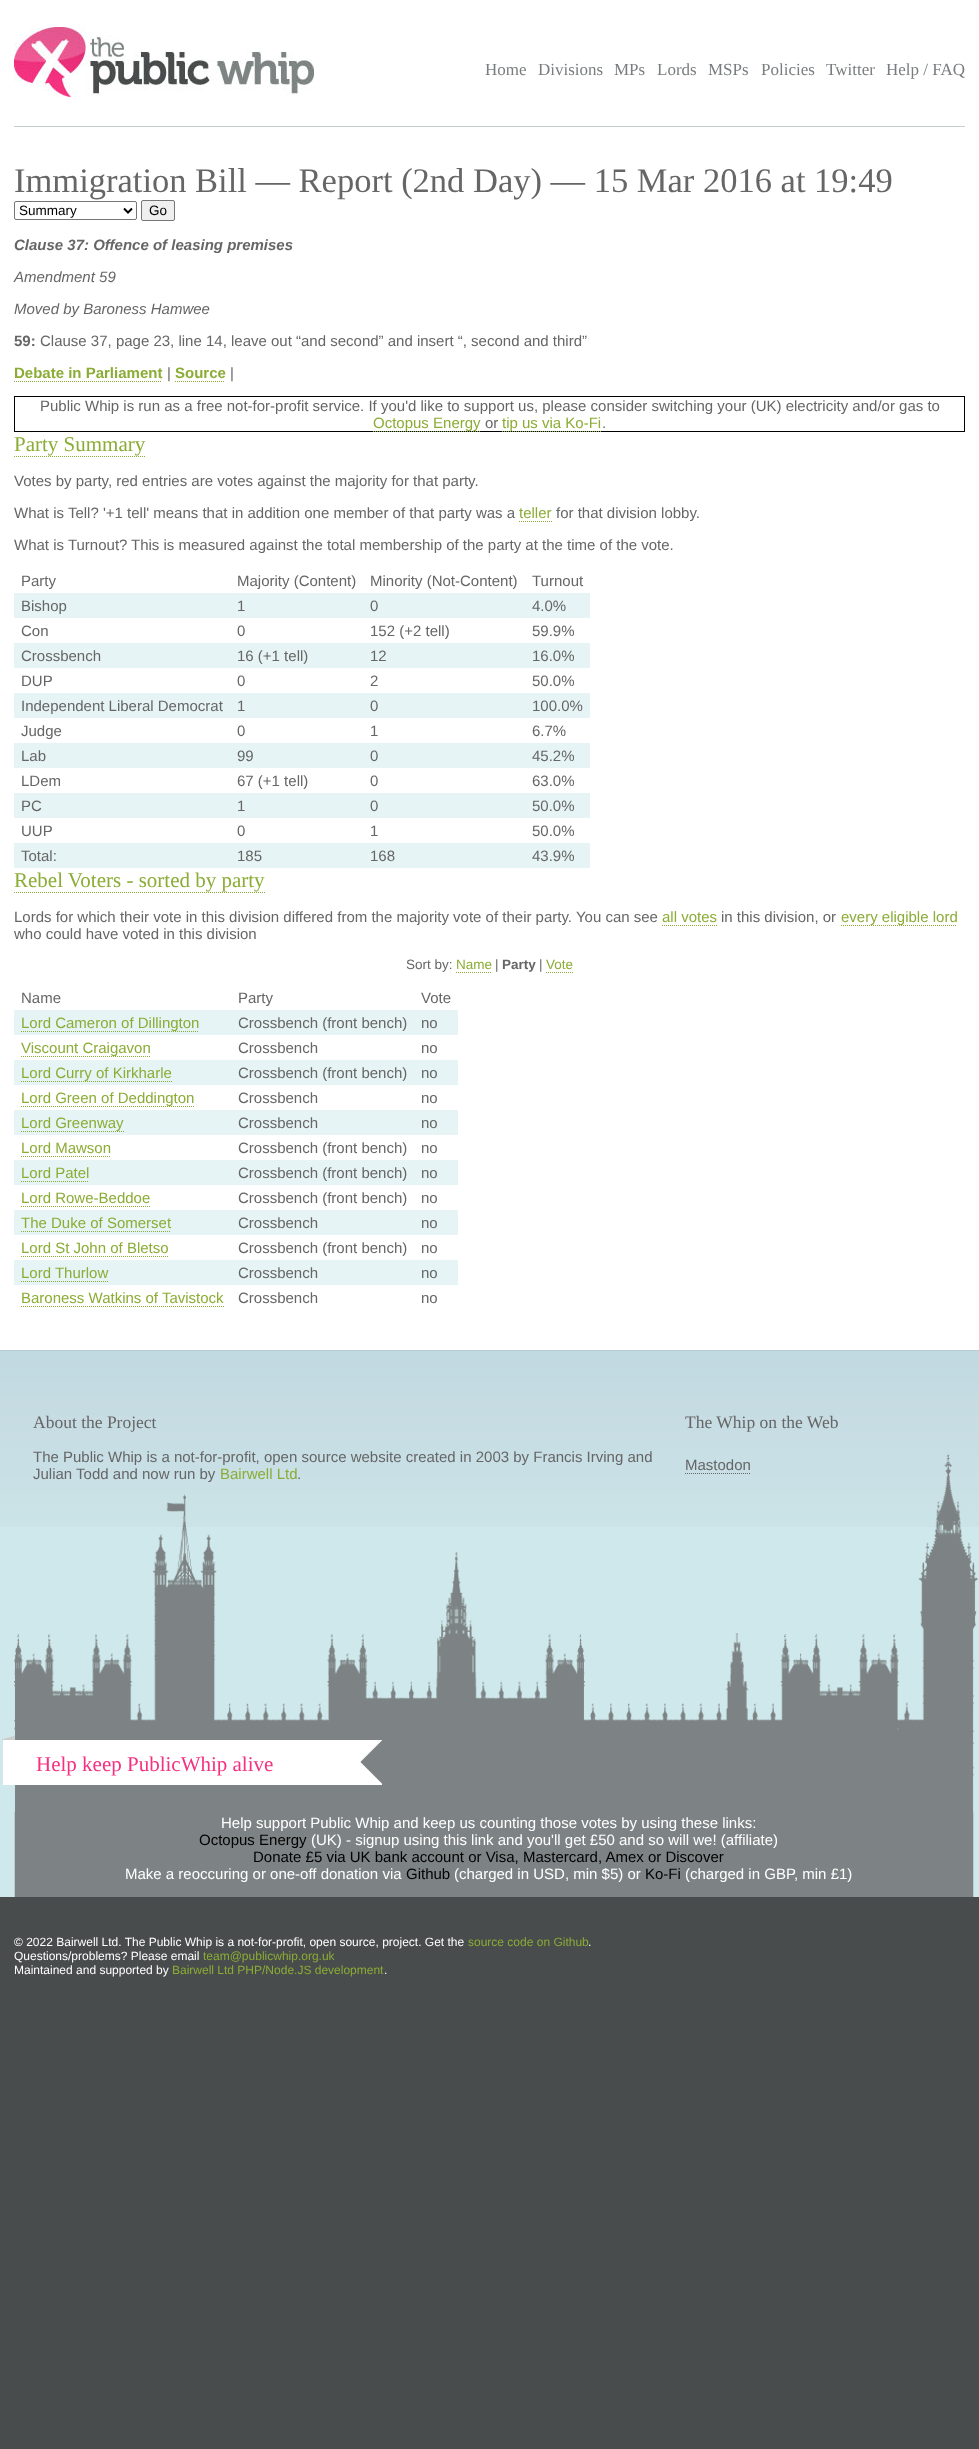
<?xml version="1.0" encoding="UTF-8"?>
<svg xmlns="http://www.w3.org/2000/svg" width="979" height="2449">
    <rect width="100%" height="100%" fill="#494C4C"/>
    <rect x="0" y="0" width="979" height="1350" fill="#FFFFFF"/>
    <rect x="14" y="126" width="951" height="1" fill="#C6CED0"/>
    <image x="14" y="27" width="300" height="70" href="img_01.png"/>
    <text x="485" y="75" font-family="Liberation Serif" font-size="17" fill="#797D7F">Home</text>
    <text x="538" y="75" font-family="Liberation Serif" font-size="17" fill="#797D7F">Divisions</text>
    <text x="614" y="75" font-family="Liberation Serif" font-size="17" fill="#797D7F">MPs</text>
    <text x="657" y="75" font-family="Liberation Serif" font-size="17" fill="#797D7F">Lords</text>
    <text x="708" y="75" font-family="Liberation Serif" font-size="17" fill="#797D7F">MSPs</text>
    <text x="761" y="75" font-family="Liberation Serif" font-size="17" fill="#797D7F">Policies</text>
    <text x="826" y="75" font-family="Liberation Serif" font-size="17" fill="#797D7F">Twitter</text>
    <text x="886" y="75" font-family="Liberation Serif" font-size="17" fill="#797D7F">Help / FAQ</text>
    <text x="14" y="192" font-family="Liberation Serif" font-size="34.5" fill="#666666">Immigration Bill — Report (2nd Day) — 15 Mar 2016 at 19:49</text>
    <rect x="14.5" y="201.5" width="122" height="18" rx="1.5" fill="none" stroke="#767676"/>
    <path d="M 124 208.5 L 128 212.5 L 132 208.5" fill="none" stroke="#000000" stroke-width="2"/>
    <text x="19" y="215" font-family="Liberation Sans" font-size="13.5" fill="#000000">Summary</text>
    <rect x="141.5" y="200.5" width="33" height="20" rx="1.5" fill="#EFEFEF" stroke="#767676"/>
    <text x="149" y="215" font-family="Liberation Sans" font-size="13.5" fill="#000000">Go</text>
    <text x="14" y="250" font-family="Liberation Sans" font-size="15" font-weight="700" font-style="italic" fill="#666666">Clause 37: Offence of leasing premises</text>
    <text x="14" y="282" font-family="Liberation Sans" font-size="15" font-style="italic" fill="#666666">Amendment 59</text>
    <text x="14" y="314" font-family="Liberation Sans" font-size="15" font-style="italic" fill="#666666">Moved by Baroness Hamwee</text>
    <text x="14" y="346" font-family="Liberation Sans" font-size="15" font-weight="700" fill="#666666">59:</text>
    <text x="40" y="346" font-family="Liberation Sans" font-size="15" fill="#666666">Clause 37, page 23, line 14, leave out “and second” and insert “, second and third”</text>
    <text x="14" y="378" font-family="Liberation Sans" font-size="15" font-weight="700" fill="#8BAC35">Debate in Parliament</text>
    <path d="M 14 381.5 H 162" fill="none" stroke="#8BAC35" stroke-dasharray="1 1"/>
    <text x="167" y="378" font-family="Liberation Sans" font-size="15" fill="#666666">|</text>
    <text x="175" y="378" font-family="Liberation Sans" font-size="15" font-weight="700" fill="#8BAC35">Source</text>
    <path d="M 175 381.5 H 225" fill="none" stroke="#8BAC35" stroke-dasharray="1 1"/>
    <text x="230" y="378" font-family="Liberation Sans" font-size="15" fill="#666666">|</text>
    <rect x="14.5" y="396.5" width="950" height="35" fill="none" stroke="#000000"/>
    <text x="40" y="411" font-family="Liberation Sans" font-size="15" fill="#666666">Public Whip is run as a free not-for-profit service. If you'd like to support us, please consider switching your (UK) electricity and/or gas to</text>
    <path d="M 373 431.5 H 481" fill="none" stroke="#8BAC35" stroke-dasharray="1 1"/>
    <text x="373" y="428" font-family="Liberation Sans" font-size="15" fill="#8BAC35">Octopus Energy</text>
    <text x="485" y="428" font-family="Liberation Sans" font-size="15" fill="#666666">or</text>
    <path d="M 502 431.5 H 602" fill="none" stroke="#8BAC35" stroke-dasharray="1 1"/>
    <text x="502" y="428" font-family="Liberation Sans" font-size="15" fill="#8BAC35">tip us via Ko-Fi</text>
    <text x="602" y="428" font-family="Liberation Sans" font-size="15" fill="#666666">.</text>
    <text x="14" y="451" font-family="Liberation Serif" font-size="21" fill="#8BAC35">Party Summary</text>
    <path d="M 14 456.5 H 145" fill="none" stroke="#8BAC35" stroke-dasharray="1 1"/>
    <text x="14" y="486" font-family="Liberation Sans" font-size="15" fill="#666666">Votes by party, red entries are votes against the majority for that party.</text>
    <text x="14" y="518" font-family="Liberation Sans" font-size="15" fill="#666666">What is Tell? '+1 tell' means that in addition one member of that party was a</text>
    <text x="519" y="518" font-family="Liberation Sans" font-size="15" fill="#8BAC35">teller</text>
    <path d="M 519 521.5 H 552" fill="none" stroke="#8BAC35" stroke-dasharray="1 1"/>
    <text x="556" y="518" font-family="Liberation Sans" font-size="15" fill="#666666">for that division lobby.</text>
    <text x="14" y="550" font-family="Liberation Sans" font-size="15" fill="#666666">What is Turnout?</text>
    <text x="131" y="550" font-family="Liberation Sans" font-size="15" fill="#666666">This is measured against the total membership of the party at the time of the vote.</text>
    <text x="21" y="586" font-family="Liberation Sans" font-size="15" fill="#666666">Party</text>
    <text x="237" y="586" font-family="Liberation Sans" font-size="15" fill="#666666">Majority (Content)</text>
    <text x="370" y="586" font-family="Liberation Sans" font-size="15" fill="#666666">Minority (Not-Content)</text>
    <text x="532" y="586" font-family="Liberation Sans" font-size="15" fill="#666666">Turnout</text>
    <rect x="14" y="593" width="576" height="25" fill="#E7F4F5"/>
    <text x="21" y="611" font-family="Liberation Sans" font-size="15" fill="#666666">Bishop</text>
    <text x="237" y="611" font-family="Liberation Sans" font-size="15" fill="#666666">1</text>
    <text x="370" y="611" font-family="Liberation Sans" font-size="15" fill="#666666">0</text>
    <text x="532" y="611" font-family="Liberation Sans" font-size="15" fill="#666666">4.0%</text>
    <text x="21" y="636" font-family="Liberation Sans" font-size="15" fill="#666666">Con</text>
    <text x="237" y="636" font-family="Liberation Sans" font-size="15" fill="#666666">0</text>
    <text x="370" y="636" font-family="Liberation Sans" font-size="15" fill="#666666">152 (+2 tell)</text>
    <text x="532" y="636" font-family="Liberation Sans" font-size="15" fill="#666666">59.9%</text>
    <rect x="14" y="643" width="576" height="25" fill="#E7F4F5"/>
    <text x="21" y="661" font-family="Liberation Sans" font-size="15" fill="#666666">Crossbench</text>
    <text x="237" y="661" font-family="Liberation Sans" font-size="15" fill="#666666">16 (+1 tell)</text>
    <text x="370" y="661" font-family="Liberation Sans" font-size="15" fill="#666666">12</text>
    <text x="532" y="661" font-family="Liberation Sans" font-size="15" fill="#666666">16.0%</text>
    <text x="21" y="686" font-family="Liberation Sans" font-size="15" fill="#666666">DUP</text>
    <text x="237" y="686" font-family="Liberation Sans" font-size="15" fill="#666666">0</text>
    <text x="370" y="686" font-family="Liberation Sans" font-size="15" fill="#666666">2</text>
    <text x="532" y="686" font-family="Liberation Sans" font-size="15" fill="#666666">50.0%</text>
    <rect x="14" y="693" width="576" height="25" fill="#E7F4F5"/>
    <text x="21" y="711" font-family="Liberation Sans" font-size="15" fill="#666666">Independent Liberal Democrat</text>
    <text x="237" y="711" font-family="Liberation Sans" font-size="15" fill="#666666">1</text>
    <text x="370" y="711" font-family="Liberation Sans" font-size="15" fill="#666666">0</text>
    <text x="532" y="711" font-family="Liberation Sans" font-size="15" fill="#666666">100.0%</text>
    <text x="21" y="736" font-family="Liberation Sans" font-size="15" fill="#666666">Judge</text>
    <text x="237" y="736" font-family="Liberation Sans" font-size="15" fill="#666666">0</text>
    <text x="370" y="736" font-family="Liberation Sans" font-size="15" fill="#666666">1</text>
    <text x="532" y="736" font-family="Liberation Sans" font-size="15" fill="#666666">6.7%</text>
    <rect x="14" y="743" width="576" height="25" fill="#E7F4F5"/>
    <text x="21" y="761" font-family="Liberation Sans" font-size="15" fill="#666666">Lab</text>
    <text x="237" y="761" font-family="Liberation Sans" font-size="15" fill="#666666">99</text>
    <text x="370" y="761" font-family="Liberation Sans" font-size="15" fill="#666666">0</text>
    <text x="532" y="761" font-family="Liberation Sans" font-size="15" fill="#666666">45.2%</text>
    <text x="21" y="786" font-family="Liberation Sans" font-size="15" fill="#666666">LDem</text>
    <text x="237" y="786" font-family="Liberation Sans" font-size="15" fill="#666666">67 (+1 tell)</text>
    <text x="370" y="786" font-family="Liberation Sans" font-size="15" fill="#666666">0</text>
    <text x="532" y="786" font-family="Liberation Sans" font-size="15" fill="#666666">63.0%</text>
    <rect x="14" y="793" width="576" height="25" fill="#E7F4F5"/>
    <text x="21" y="811" font-family="Liberation Sans" font-size="15" fill="#666666">PC</text>
    <text x="237" y="811" font-family="Liberation Sans" font-size="15" fill="#666666">1</text>
    <text x="370" y="811" font-family="Liberation Sans" font-size="15" fill="#666666">0</text>
    <text x="532" y="811" font-family="Liberation Sans" font-size="15" fill="#666666">50.0%</text>
    <text x="21" y="836" font-family="Liberation Sans" font-size="15" fill="#666666">UUP</text>
    <text x="237" y="836" font-family="Liberation Sans" font-size="15" fill="#666666">0</text>
    <text x="370" y="836" font-family="Liberation Sans" font-size="15" fill="#666666">1</text>
    <text x="532" y="836" font-family="Liberation Sans" font-size="15" fill="#666666">50.0%</text>
    <rect x="14" y="843" width="576" height="25" fill="#E7F4F5"/>
    <text x="21" y="861" font-family="Liberation Sans" font-size="15" fill="#666666">Total:</text>
    <text x="237" y="861" font-family="Liberation Sans" font-size="15" fill="#666666">185</text>
    <text x="370" y="861" font-family="Liberation Sans" font-size="15" fill="#666666">168</text>
    <text x="532" y="861" font-family="Liberation Sans" font-size="15" fill="#666666">43.9%</text>
    <text x="14" y="887" font-family="Liberation Serif" font-size="21" fill="#8BAC35">Rebel Voters - sorted by party</text>
    <path d="M 14 892.5 H 265" fill="none" stroke="#8BAC35" stroke-dasharray="1 1"/>
    <text x="14" y="922" font-family="Liberation Sans" font-size="15" fill="#666666">Lords for which their vote in this division differed from the majority vote of their party. You can see</text>
    <text x="662" y="922" font-family="Liberation Sans" font-size="15" fill="#8BAC35">all votes</text>
    <path d="M 662 925.5 H 717" fill="none" stroke="#8BAC35" stroke-dasharray="1 1"/>
    <text x="721" y="922" font-family="Liberation Sans" font-size="15" fill="#666666">in this division, or</text>
    <path d="M 841 925.5 H 957" fill="none" stroke="#8BAC35" stroke-dasharray="1 1"/>
    <text x="841" y="922" font-family="Liberation Sans" font-size="15" fill="#8BAC35">every eligible lord</text>
    <text x="14" y="939" font-family="Liberation Sans" font-size="15" fill="#666666">who could have voted in this division</text>
    <text x="406" y="969" font-family="Liberation Sans" font-size="13.5" fill="#666666">Sort by:</text>
    <text x="456" y="969" font-family="Liberation Sans" font-size="13.5" fill="#8BAC35">Name</text>
    <path d="M 456 972.5 H 491" fill="none" stroke="#8BAC35" stroke-dasharray="1 1"/>
    <text x="495" y="969" font-family="Liberation Sans" font-size="13.5" fill="#666666">|</text>
    <text x="502" y="969" font-family="Liberation Sans" font-size="13.5" font-weight="700" fill="#666666">Party</text>
    <text x="539" y="969" font-family="Liberation Sans" font-size="13.5" fill="#666666">|</text>
    <text x="546" y="969" font-family="Liberation Sans" font-size="13.5" fill="#8BAC35">Vote</text>
    <path d="M 546 972.5 H 573" fill="none" stroke="#8BAC35" stroke-dasharray="1 1"/>
    <text x="21" y="1003" font-family="Liberation Sans" font-size="15" fill="#666666">Name</text>
    <text x="238" y="1003" font-family="Liberation Sans" font-size="15" fill="#666666">Party</text>
    <text x="421" y="1003" font-family="Liberation Sans" font-size="15" fill="#666666">Vote</text>
    <rect x="14" y="1010" width="444" height="25" fill="#E7F4F5"/>
    <path d="M 21 1031.5 H 199" fill="none" stroke="#8BAC35" stroke-dasharray="1 1"/>
    <text x="21" y="1028" font-family="Liberation Sans" font-size="15" fill="#8BAC35">Lord Cameron of Dillington</text>
    <text x="238" y="1028" font-family="Liberation Sans" font-size="15" fill="#666666">Crossbench (front bench)</text>
    <text x="421" y="1028" font-family="Liberation Sans" font-size="15" fill="#666666">no</text>
    <path d="M 21 1056.5 H 151" fill="none" stroke="#8BAC35" stroke-dasharray="1 1"/>
    <text x="21" y="1053" font-family="Liberation Sans" font-size="15" fill="#8BAC35">Viscount Craigavon</text>
    <text x="238" y="1053" font-family="Liberation Sans" font-size="15" fill="#666666">Crossbench</text>
    <text x="421" y="1053" font-family="Liberation Sans" font-size="15" fill="#666666">no</text>
    <rect x="14" y="1060" width="444" height="25" fill="#E7F4F5"/>
    <path d="M 21 1081.5 H 172" fill="none" stroke="#8BAC35" stroke-dasharray="1 1"/>
    <text x="21" y="1078" font-family="Liberation Sans" font-size="15" fill="#8BAC35">Lord Curry of Kirkharle</text>
    <text x="238" y="1078" font-family="Liberation Sans" font-size="15" fill="#666666">Crossbench (front bench)</text>
    <text x="421" y="1078" font-family="Liberation Sans" font-size="15" fill="#666666">no</text>
    <path d="M 21 1106.5 H 194" fill="none" stroke="#8BAC35" stroke-dasharray="1 1"/>
    <text x="21" y="1103" font-family="Liberation Sans" font-size="15" fill="#8BAC35">Lord Green of Deddington</text>
    <text x="238" y="1103" font-family="Liberation Sans" font-size="15" fill="#666666">Crossbench</text>
    <text x="421" y="1103" font-family="Liberation Sans" font-size="15" fill="#666666">no</text>
    <rect x="14" y="1110" width="444" height="25" fill="#E7F4F5"/>
    <path d="M 21 1131.5 H 124" fill="none" stroke="#8BAC35" stroke-dasharray="1 1"/>
    <text x="21" y="1128" font-family="Liberation Sans" font-size="15" fill="#8BAC35">Lord Greenway</text>
    <text x="238" y="1128" font-family="Liberation Sans" font-size="15" fill="#666666">Crossbench</text>
    <text x="421" y="1128" font-family="Liberation Sans" font-size="15" fill="#666666">no</text>
    <text x="21" y="1153" font-family="Liberation Sans" font-size="15" fill="#8BAC35">Lord Mawson</text>
    <path d="M 21 1156.5 H 111" fill="none" stroke="#8BAC35" stroke-dasharray="1 1"/>
    <text x="238" y="1153" font-family="Liberation Sans" font-size="15" fill="#666666">Crossbench (front bench)</text>
    <text x="421" y="1153" font-family="Liberation Sans" font-size="15" fill="#666666">no</text>
    <rect x="14" y="1160" width="444" height="25" fill="#E7F4F5"/>
    <text x="21" y="1178" font-family="Liberation Sans" font-size="15" fill="#8BAC35">Lord Patel</text>
    <path d="M 21 1181.5 H 89" fill="none" stroke="#8BAC35" stroke-dasharray="1 1"/>
    <text x="238" y="1178" font-family="Liberation Sans" font-size="15" fill="#666666">Crossbench (front bench)</text>
    <text x="421" y="1178" font-family="Liberation Sans" font-size="15" fill="#666666">no</text>
    <text x="21" y="1203" font-family="Liberation Sans" font-size="15" fill="#8BAC35">Lord Rowe-Beddoe</text>
    <path d="M 21 1206.5 H 150" fill="none" stroke="#8BAC35" stroke-dasharray="1 1"/>
    <text x="238" y="1203" font-family="Liberation Sans" font-size="15" fill="#666666">Crossbench (front bench)</text>
    <text x="421" y="1203" font-family="Liberation Sans" font-size="15" fill="#666666">no</text>
    <rect x="14" y="1210" width="444" height="25" fill="#E7F4F5"/>
    <text x="21" y="1228" font-family="Liberation Sans" font-size="15" fill="#8BAC35">The Duke of Somerset</text>
    <path d="M 21 1231.5 H 171" fill="none" stroke="#8BAC35" stroke-dasharray="1 1"/>
    <text x="238" y="1228" font-family="Liberation Sans" font-size="15" fill="#666666">Crossbench</text>
    <text x="421" y="1228" font-family="Liberation Sans" font-size="15" fill="#666666">no</text>
    <text x="21" y="1253" font-family="Liberation Sans" font-size="15" fill="#8BAC35">Lord St John of Bletso</text>
    <path d="M 21 1256.5 H 169" fill="none" stroke="#8BAC35" stroke-dasharray="1 1"/>
    <text x="238" y="1253" font-family="Liberation Sans" font-size="15" fill="#666666">Crossbench (front bench)</text>
    <text x="421" y="1253" font-family="Liberation Sans" font-size="15" fill="#666666">no</text>
    <rect x="14" y="1260" width="444" height="25" fill="#E7F4F5"/>
    <text x="21" y="1278" font-family="Liberation Sans" font-size="15" fill="#8BAC35">Lord Thurlow</text>
    <path d="M 21 1281.5 H 108" fill="none" stroke="#8BAC35" stroke-dasharray="1 1"/>
    <text x="238" y="1278" font-family="Liberation Sans" font-size="15" fill="#666666">Crossbench</text>
    <text x="421" y="1278" font-family="Liberation Sans" font-size="15" fill="#666666">no</text>
    <text x="21" y="1303" font-family="Liberation Sans" font-size="15" fill="#8BAC35">Baroness Watkins of Tavistock</text>
    <path d="M 21 1306.5 H 224" fill="none" stroke="#8BAC35" stroke-dasharray="1 1"/>
    <text x="238" y="1303" font-family="Liberation Sans" font-size="15" fill="#666666">Crossbench</text>
    <text x="421" y="1303" font-family="Liberation Sans" font-size="15" fill="#666666">no</text>
    <rect x="0" y="1527" width="979" height="370" fill="#CFE8EB"/>
    <image x="0" y="1351" width="979" height="176" href="img_02.png"/>
    <rect x="0" y="1350" width="979" height="1" fill="#B7CCD5"/>
    <text x="33" y="1428" font-family="Liberation Serif" font-size="17.5" fill="#666666">About the Project</text>
    <image x="2" y="1454" width="976" height="443" href="img_03.png"/>
    <text font-family="Liberation Sans" font-size="15" fill="#666666">
        <tspan x="33" y="1462">The Public Whip is a not-for-profit, open source website created in 2003 by Francis Irving and</tspan>
        <tspan x="33" y="1479">Julian Todd and now run by</tspan>
    </text>
    <text x="220" y="1479" font-family="Liberation Sans" font-size="15" fill="#8BAC35">Bairwell Ltd</text>
    <text x="297" y="1479" font-family="Liberation Sans" font-size="15" fill="#666666">.</text>
    <text x="685" y="1428" font-family="Liberation Serif" font-size="17.5" fill="#666666">The Whip on the Web</text>
    <text x="685" y="1470" font-family="Liberation Sans" font-size="15" fill="#666666">Mastodon</text>
    <path d="M 685 1473.5 H 751" fill="none" stroke="#666666" stroke-dasharray="1 1"/>
    <text x="36" y="1771" font-family="Liberation Serif" font-size="21" fill="#F53181">Help keep PublicWhip alive</text>
    <text x="221" y="1828" font-family="Liberation Sans" font-size="15" fill="#FFFFFF">Help support Public Whip and keep us counting those votes by using these links:</text>
    <text x="199" y="1845" font-family="Liberation Sans" font-size="15" fill="#000000">Octopus Energy</text>
    <text x="311" y="1845" font-family="Liberation Sans" font-size="15" fill="#FFFFFF">(UK) - signup using this link and you'll get £50 and so will we! (affiliate)</text>
    <text x="253" y="1862" font-family="Liberation Sans" font-size="15" fill="#000000">Donate £5 via UK bank account or Visa, Mastercard, Amex or Discover</text>
    <text x="125" y="1879" font-family="Liberation Sans" font-size="15" fill="#FFFFFF">Make a reoccuring or one-off donation via</text>
    <text x="406" y="1879" font-family="Liberation Sans" font-size="15" fill="#000000">Github</text>
    <text x="454" y="1879" font-family="Liberation Sans" font-size="15" fill="#FFFFFF">(charged in USD, min $5) or</text>
    <text x="645" y="1879" font-family="Liberation Sans" font-size="15" fill="#000000">Ko-Fi</text>
    <text x="685" y="1879" font-family="Liberation Sans" font-size="15" fill="#FFFFFF">(charged in GBP, min £1)</text>
    <text x="14" y="1946" font-family="Liberation Sans" font-size="12" fill="#FFFFFF">© 2022 Bairwell Ltd. The Public Whip is a not-for-profit, open source, project. Get the</text>
    <text x="468" y="1946" font-family="Liberation Sans" font-size="12" fill="#8BAC35">source code on Github</text>
    <text x="588" y="1946" font-family="Liberation Sans" font-size="12" fill="#FFFFFF">.</text>
    <text x="14" y="1960" font-family="Liberation Sans" font-size="12" fill="#FFFFFF">Questions/problems? Please email</text>
    <text x="203" y="1960" font-family="Liberation Sans" font-size="12" fill="#8BAC35">team@publicwhip.org.uk</text>
    <text x="14" y="1974" font-family="Liberation Sans" font-size="12" fill="#FFFFFF">Maintained and supported by</text>
    <text x="172" y="1974" font-family="Liberation Sans" font-size="12" fill="#8BAC35">Bairwell Ltd PHP/Node.JS development</text>
    <text x="384" y="1974" font-family="Liberation Sans" font-size="12" fill="#FFFFFF">.</text>
</svg>
